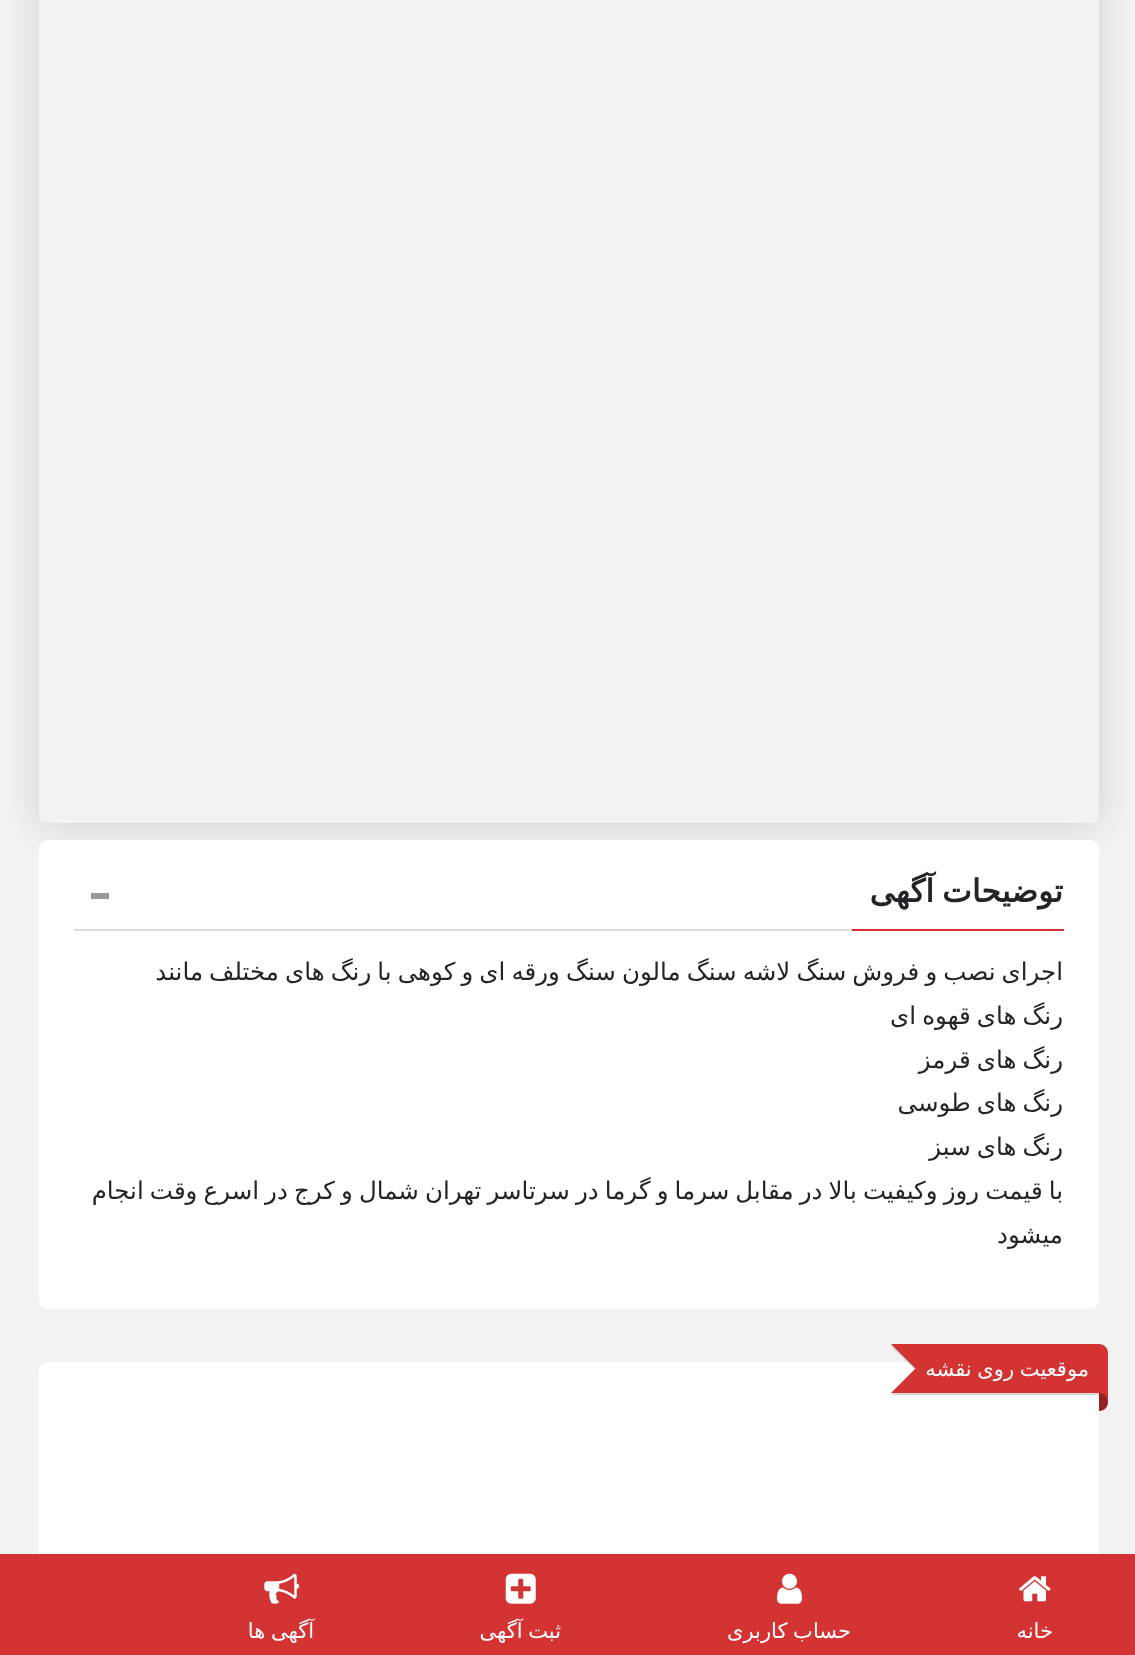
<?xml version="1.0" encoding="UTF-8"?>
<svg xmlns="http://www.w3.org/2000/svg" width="1135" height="1655">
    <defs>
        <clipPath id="clip1"><path d="M 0 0 H 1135 V 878 H 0 Z M 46 -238 H 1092 C 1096 -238 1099 -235 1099 -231 V 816 C 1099 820 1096 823 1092 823 H 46 C 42 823 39 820 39 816 V -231 C 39 -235 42 -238 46 -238 Z" clip-rule="evenodd"/></clipPath>
        <filter id="blur1" x="-50%" y="-200%" width="200%" height="500%"><feGaussianBlur stdDeviation="17.5"/></filter>
    </defs>
    <rect width="100%" height="100%" fill="#F2F2F2"/>
    <g clip-path="url(#clip1)">
        <rect x="39" y="-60" width="1060" height="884" rx="7" fill="#000000" fill-opacity="0.15" filter="url(#blur1)"/>
    </g>
    <rect x="39" y="840" width="1060" height="469" rx="9" fill="#FFFFFF"/>
    <rect x="852" y="929" width="212" height="2" fill="#D33333"/>
    <text x="1063" y="902" word-spacing="-2" font-family="DejaVu Sans" font-size="31.5" font-weight="700" direction="rtl" fill="#212529">توضیحات آگهی</text>
    <rect x="91" y="893" width="18" height="6" fill="#9A9A9A"/>
    <rect x="74" y="929" width="778" height="2" fill="#DDDDDD"/>
    <text font-family="DejaVu Sans" font-size="24.5" direction="rtl" fill="#212529">
        <tspan x="1063" y="980" word-spacing="-1.7">اجرای نصب و فروش سنگ لاشه سنگ مالون سنگ ورقه ای و کوهی با رنگ های مختلف مانند</tspan>
        <tspan x="1063" y="1024" word-spacing="-1.7">رنگ های قهوه ای</tspan>
        <tspan x="1063" y="1068" word-spacing="-1.7">رنگ های قرمز</tspan>
        <tspan x="1063" y="1111" word-spacing="-1.7">رنگ های طوسی</tspan>
        <tspan x="1063" y="1155" word-spacing="-1.7">رنگ های سبز</tspan>
        <tspan x="1063" y="1199" word-spacing="-1.7">با قیمت روز وکیفیت بالا در مقابل سرما و گرما در سرتاسر تهران شمال و کرج در اسرع وقت انجام</tspan>
        <tspan x="1063" y="1243">میشود</tspan>
    </text>
    <rect x="39" y="1362" width="1060" height="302" rx="9" fill="#FFFFFF"/>
    <rect x="917" y="1393" width="182" height="2" fill="#D9D9D9"/>
    <rect x="917" y="1344" width="182" height="49" fill="#D33333"/>
    <path d="M 1090 1344 H 1099 C 1104 1344 1108 1348 1108 1353 V 1362 H 1090 Z" fill="#D33333"/>
    <rect x="1099" y="1362" width="9" height="40" fill="#D33333"/>
    <text x="1089" y="1376" word-spacing="-1" font-family="DejaVu Sans" font-size="21" direction="rtl" fill="#FFFFFF">موقعیت روی نقشه</text>
    <path d="M 917 1346 V 1372 L 891 1346 Z" fill="#000000" fill-opacity="0.15"/>
    <path d="M 917 1395 H 891 L 917 1368.5 Z" fill="#000000" fill-opacity="0.15"/>
    <path d="M 917 1344 V 1370 L 891 1344 Z" fill="#D33333"/>
    <path d="M 917 1393 H 891 L 917 1367 Z" fill="#D33333"/>
    <path d="M 1099 1393 C 1104 1393 1108 1397 1108 1402 C 1108 1407 1104 1411 1099 1411 Z" fill="#D33333"/>
    <path d="M 1099 1393 C 1104 1393 1108 1397 1108 1402 C 1108 1407 1104 1411 1099 1411 Z" fill="#000000" fill-opacity="0.3"/>
    <rect x="0" y="1554" width="1135" height="101" fill="#D33333"/>
    <image x="1019" y="1576" width="32" height="26" href="img_01.png"/>
    <text x="1053" y="1638" font-family="DejaVu Sans" font-size="21" direction="rtl" fill="#FFFFFF">خانه</text>
    <image x="777" y="1573" width="25" height="31" href="img_02.png"/>
    <text x="851" y="1638" word-spacing="-1" font-family="DejaVu Sans" font-size="21" direction="rtl" fill="#FFFFFF">حساب کاربری</text>
    <image x="505" y="1573" width="31" height="31" href="img_03.png"/>
    <text x="561" y="1638" word-spacing="-1" font-family="DejaVu Sans" font-size="21" direction="rtl" fill="#FFFFFF">ثبت آگهی</text>
    <image x="264" y="1573" width="36" height="31" href="img_04.png"/>
    <text x="314" y="1638" word-spacing="-1" font-family="DejaVu Sans" font-size="21" direction="rtl" fill="#FFFFFF">آگهی ها</text>
</svg>
